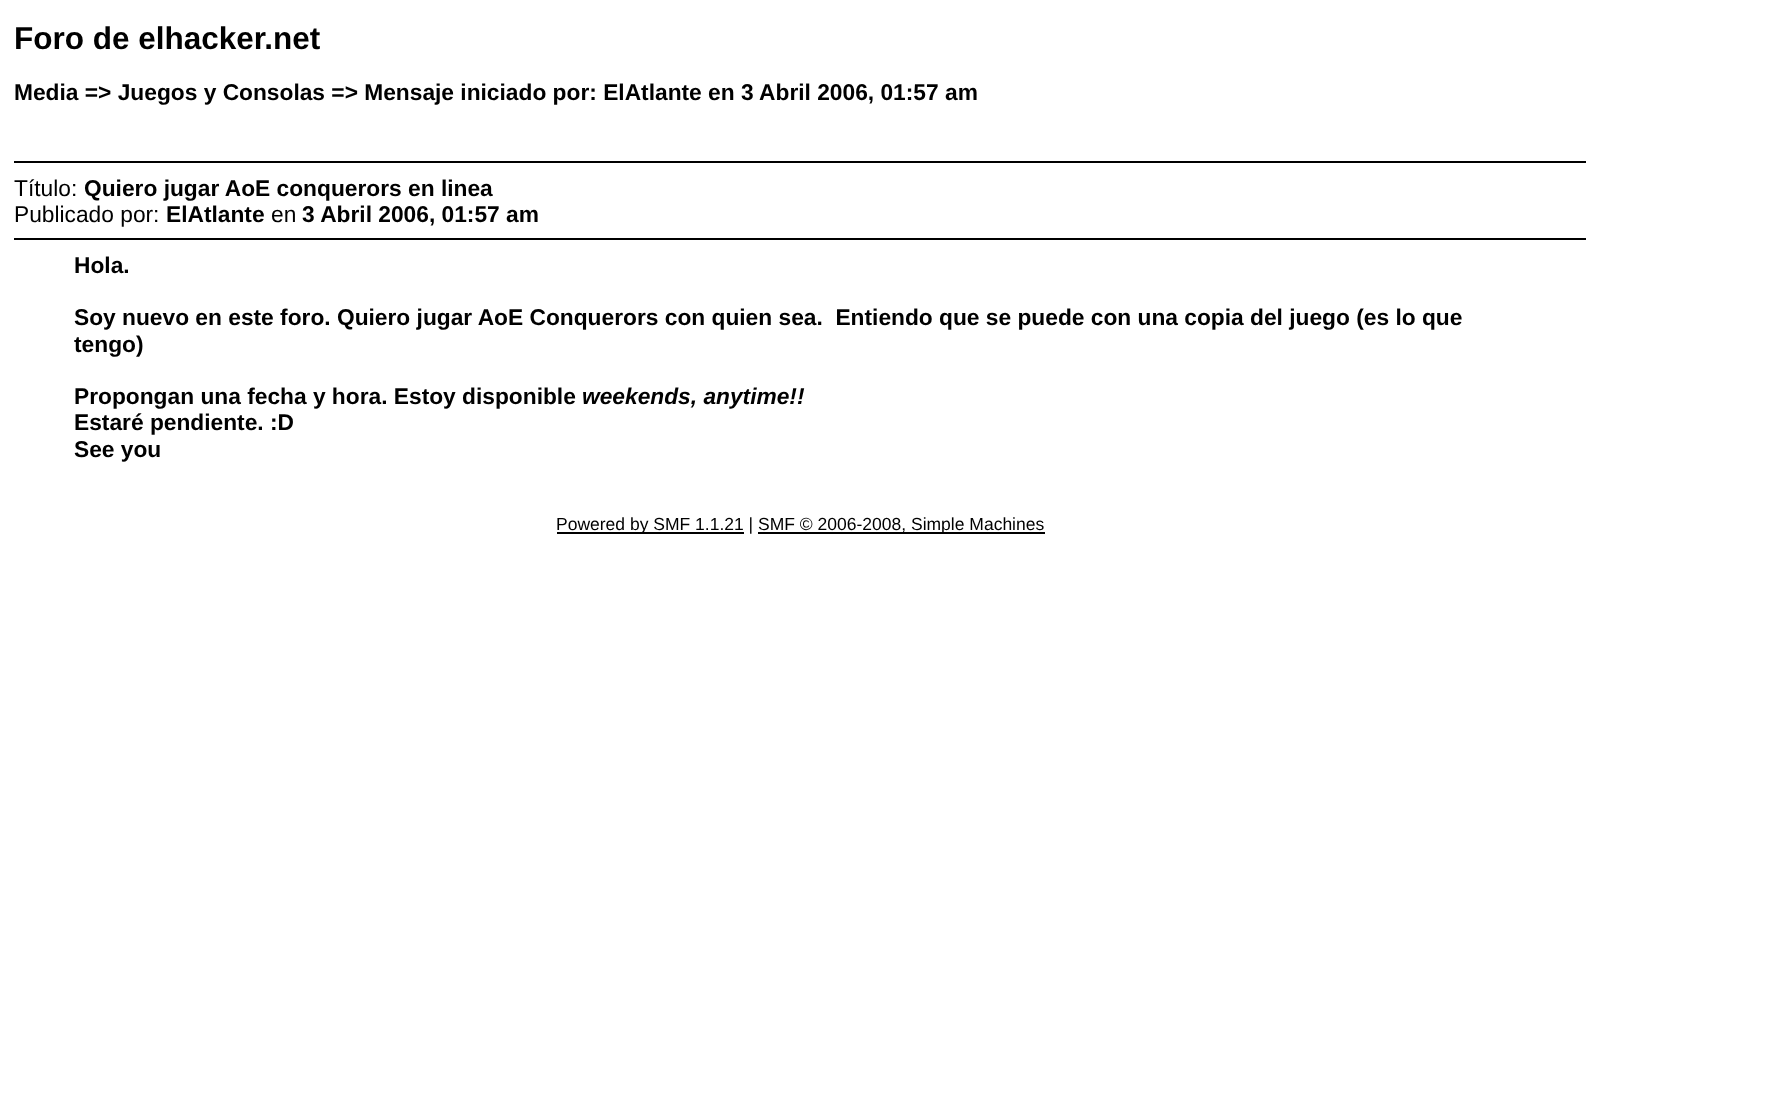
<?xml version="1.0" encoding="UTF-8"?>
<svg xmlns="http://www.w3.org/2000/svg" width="1773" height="1111">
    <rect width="100%" height="100%" fill="#FFFFFF"/>
    <text x="14" y="49" font-family="Liberation Sans" font-size="31.5" font-weight="700" fill="#000000">Foro de elhacker.net</text>
    <text x="14" y="100" font-family="Liberation Sans" font-size="22.75" font-weight="700" fill="#000000">Media =&gt; Juegos y Consolas =&gt; Mensaje iniciado por: ElAtlante en 3 Abril 2006, 01:57 am</text>
    <rect x="14" y="161" width="1572" height="2" fill="#000000"/>
    <text x="14" y="196" font-family="Liberation Sans" font-size="22.75" fill="#000000">Título:</text>
    <text x="84" y="196" font-family="Liberation Sans" font-size="22.75" font-weight="700" fill="#000000">Quiero jugar AoE conquerors en linea</text>
    <text x="14" y="222" font-family="Liberation Sans" font-size="22.75" fill="#000000">Publicado por:</text>
    <text x="166" y="222" font-family="Liberation Sans" font-size="22.75" font-weight="700" fill="#000000">ElAtlante</text>
    <text x="271" y="222" font-family="Liberation Sans" font-size="22.75" fill="#000000">en</text>
    <text x="302" y="222" font-family="Liberation Sans" font-size="22.75" font-weight="700" fill="#000000">3 Abril 2006, 01:57 am</text>
    <rect x="14" y="238" width="1572" height="2" fill="#000000"/>
    <text x="74" y="273" font-family="Liberation Sans" font-size="22.75" font-weight="700" fill="#000000">Hola.</text>
    <text font-family="Liberation Sans" font-size="22.75" font-weight="700" fill="#000000" xml:space="preserve"><tspan x="74" y="325">Soy nuevo en este foro. Quiero jugar AoE Conquerors con quien sea.  Entiendo que se puede con una copia del juego (es lo que</tspan><tspan x="74" y="352">tengo)</tspan></text>
    <text x="74" y="404" font-family="Liberation Sans" font-size="22.75" font-weight="700" fill="#000000">Propongan una fecha y hora. Estoy disponible</text>
    <text x="582" y="404" font-family="Liberation Sans" font-size="22.75" font-weight="700" font-style="italic" fill="#000000">weekends, anytime!!</text>
    <text font-family="Liberation Sans" font-size="22.75" font-weight="700" fill="#000000">
        <tspan x="74" y="430">Estaré pendiente. :D</tspan>
        <tspan x="74" y="457">See you</tspan>
    </text>
    <rect x="557" y="532" width="187" height="2" fill="#000000"/>
    <text x="556" y="530" font-family="Liberation Sans" font-size="17.5" fill="#000000">Powered by SMF 1.1.21 |</text>
    <rect x="758" y="532" width="287" height="2" fill="#000000"/>
    <text x="758" y="530" font-family="Liberation Sans" font-size="17.5" fill="#000000">SMF © 2006-2008, Simple Machines</text>
</svg>
